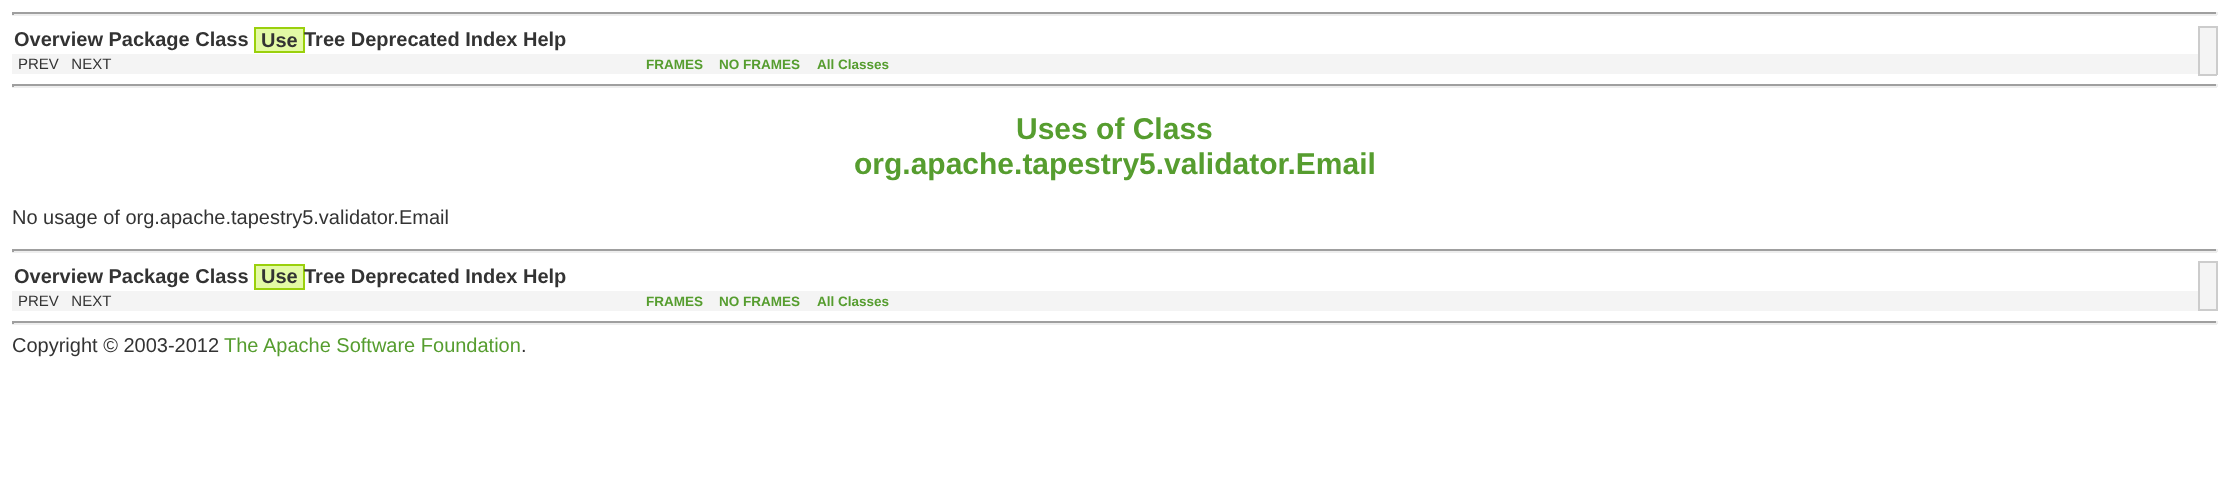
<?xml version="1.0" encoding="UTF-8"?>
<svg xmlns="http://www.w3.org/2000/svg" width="2229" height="492">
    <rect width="100%" height="100%" fill="#FFFFFF"/>
    <rect x="12" y="12" width="2205" height="2" fill="#9F9F9F"/>
    <rect x="2216" y="12" width="2" height="3" fill="#EEEEEE"/>
    <rect x="12" y="14" width="2205" height="2" fill="#EEEEEE"/>
    <rect x="12" y="12" width="2" height="3" fill="#9F9F9F"/>
    <text x="14" y="46" font-family="Liberation Sans" font-size="20" font-weight="700" fill="#333333">Overview Package Class</text>
    <rect x="256" y="29" width="47" height="22" fill="#E3FAA5"/>
    <rect x="254" y="27" width="51" height="2" fill="#9AD00C"/>
    <rect x="303" y="27" width="2" height="26" fill="#9AD00C"/>
    <rect x="254" y="51" width="51" height="2" fill="#9AD00C"/>
    <rect x="254" y="27" width="2" height="26" fill="#9AD00C"/>
    <text x="261" y="47" font-family="Liberation Sans" font-size="20" font-weight="700" fill="#333333">Use</text>
    <text x="304" y="46" font-family="Liberation Sans" font-size="20" font-weight="700" fill="#333333">Tree Deprecated Index Help</text>
    <rect x="2200" y="28" width="16" height="46" fill="#F4F4F4"/>
    <rect x="2198" y="26" width="19" height="2" fill="#CCCCCC"/>
    <rect x="2216" y="26" width="2" height="49" fill="#CCCCCC"/>
    <rect x="2198" y="74" width="19" height="2" fill="#CCCCCC"/>
    <rect x="2198" y="26" width="2" height="49" fill="#CCCCCC"/>
    <rect x="12" y="54" width="2186" height="20" fill="#F4F4F4"/>
    <text x="18" y="69" font-family="Liberation Sans" font-size="15" fill="#333333" xml:space="preserve">PREV   NEXT</text>
    <text x="646" y="69" font-family="Liberation Sans" font-size="13.5" font-weight="700" fill="#569D2F">FRAMES</text>
    <text x="719" y="69" font-family="Liberation Sans" font-size="13.5" font-weight="700" fill="#569D2F">NO FRAMES</text>
    <text x="817" y="69" font-family="Liberation Sans" font-size="13.5" font-weight="700" fill="#569D2F">All Classes</text>
    <rect x="12" y="84" width="2205" height="2" fill="#9F9F9F"/>
    <rect x="2216" y="84" width="2" height="3" fill="#EEEEEE"/>
    <rect x="12" y="86" width="2205" height="2" fill="#EEEEEE"/>
    <rect x="12" y="84" width="2" height="3" fill="#9F9F9F"/>
    <text x="1016" y="139" font-family="Liberation Sans" font-size="30" font-weight="700" fill="#569D2F">Uses of Class</text>
    <text x="854" y="174" font-family="Liberation Sans" font-size="30" font-weight="700" fill="#569D2F">org.apache.tapestry5.validator.Email</text>
    <text x="12" y="224" font-family="Liberation Sans" font-size="20" fill="#333333">No usage of org.apache.tapestry5.validator.Email</text>
    <rect x="12" y="249" width="2205" height="2" fill="#9F9F9F"/>
    <rect x="2216" y="249" width="2" height="3" fill="#EEEEEE"/>
    <rect x="12" y="251" width="2205" height="2" fill="#EEEEEE"/>
    <rect x="12" y="249" width="2" height="3" fill="#9F9F9F"/>
    <text x="14" y="283" font-family="Liberation Sans" font-size="20" font-weight="700" fill="#333333">Overview Package Class</text>
    <rect x="256" y="266" width="47" height="22" fill="#E3FAA5"/>
    <rect x="254" y="264" width="51" height="2" fill="#9AD00C"/>
    <rect x="303" y="264" width="2" height="26" fill="#9AD00C"/>
    <rect x="254" y="288" width="51" height="2" fill="#9AD00C"/>
    <rect x="254" y="264" width="2" height="26" fill="#9AD00C"/>
    <text x="261" y="283" font-family="Liberation Sans" font-size="20" font-weight="700" fill="#333333">Use</text>
    <text x="304" y="283" font-family="Liberation Sans" font-size="20" font-weight="700" fill="#333333">Tree Deprecated Index Help</text>
    <rect x="2200" y="263" width="16" height="46" fill="#F4F4F4"/>
    <rect x="2198" y="261" width="19" height="2" fill="#CCCCCC"/>
    <rect x="2216" y="261" width="2" height="50" fill="#CCCCCC"/>
    <rect x="2198" y="309" width="19" height="2" fill="#CCCCCC"/>
    <rect x="2198" y="261" width="2" height="50" fill="#CCCCCC"/>
    <rect x="12" y="291" width="2186" height="20" fill="#F4F4F4"/>
    <text x="18" y="306" font-family="Liberation Sans" font-size="15" fill="#333333" xml:space="preserve">PREV   NEXT</text>
    <text x="646" y="306" font-family="Liberation Sans" font-size="13.5" font-weight="700" fill="#569D2F">FRAMES</text>
    <text x="719" y="306" font-family="Liberation Sans" font-size="13.5" font-weight="700" fill="#569D2F">NO FRAMES</text>
    <text x="817" y="306" font-family="Liberation Sans" font-size="13.5" font-weight="700" fill="#569D2F">All Classes</text>
    <rect x="12" y="321" width="2205" height="2" fill="#9F9F9F"/>
    <rect x="2216" y="321" width="2" height="3" fill="#EEEEEE"/>
    <rect x="12" y="323" width="2205" height="2" fill="#EEEEEE"/>
    <rect x="12" y="321" width="2" height="3" fill="#9F9F9F"/>
    <text x="12" y="352" font-family="Liberation Sans" font-size="20" fill="#333333">Copyright © 2003-2012</text>
    <text x="224" y="352" font-family="Liberation Sans" font-size="20" fill="#569D2F">The Apache Software Foundation</text>
    <text x="521" y="352" font-family="Liberation Sans" font-size="20" fill="#333333">.</text>
</svg>
